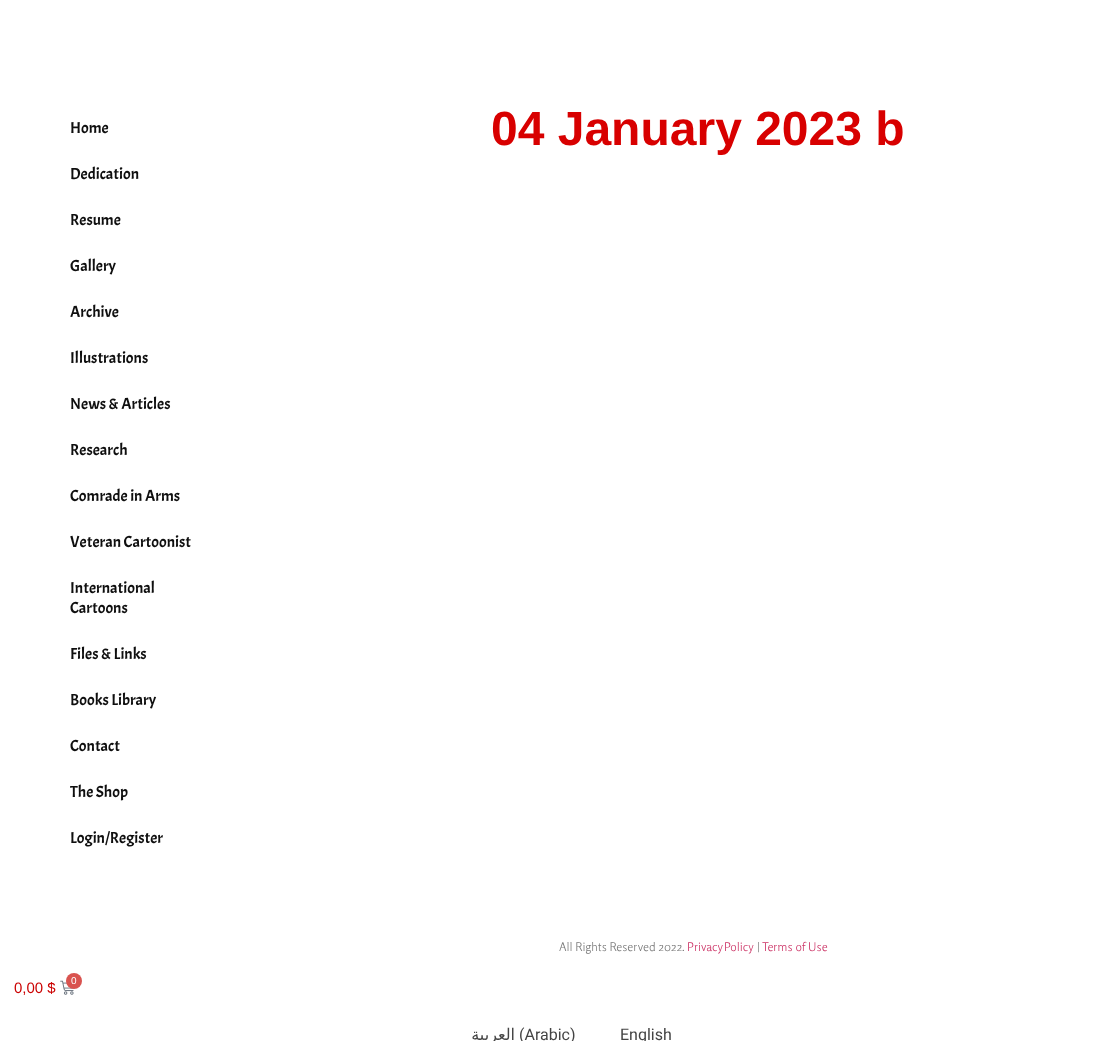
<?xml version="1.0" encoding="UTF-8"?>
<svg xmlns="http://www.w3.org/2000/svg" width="1119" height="1041">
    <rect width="100%" height="100%" fill="#FFFFFF"/>
    <text x="70" y="133" font-family="Acme" font-size="16" fill="#0F0F0F">Home</text>
    <text x="70" y="179" font-family="Acme" font-size="16" fill="#0F0F0F">Dedication</text>
    <text x="70" y="225" font-family="Acme" font-size="16" fill="#0F0F0F">Resume</text>
    <text x="70" y="271" font-family="Acme" font-size="16" fill="#0F0F0F">Gallery</text>
    <text x="70" y="317" font-family="Acme" font-size="16" fill="#0F0F0F">Archive</text>
    <text x="70" y="363" font-family="Acme" font-size="16" fill="#0F0F0F">Illustrations</text>
    <text x="70" y="409" font-family="Acme" font-size="16" fill="#0F0F0F">News &amp; Articles</text>
    <text x="70" y="455" font-family="Acme" font-size="16" fill="#0F0F0F">Research</text>
    <text x="70" y="501" font-family="Acme" font-size="16" fill="#0F0F0F">Comrade in Arms</text>
    <text x="70" y="547" font-family="Acme" font-size="16" fill="#0F0F0F">Veteran Cartoonist</text>
    <text font-family="Acme" font-size="16" fill="#0F0F0F">
        <tspan x="70" y="593">International</tspan>
        <tspan x="70" y="613">Cartoons</tspan>
    </text>
    <text x="70" y="659" font-family="Acme" font-size="16" fill="#0F0F0F">Files &amp; Links</text>
    <text x="70" y="705" font-family="Acme" font-size="16" fill="#0F0F0F">Books Library</text>
    <text x="70" y="751" font-family="Acme" font-size="16" fill="#0F0F0F">Contact</text>
    <text x="70" y="797" font-family="Acme" font-size="16" fill="#0F0F0F">The Shop</text>
    <text x="70" y="843" font-family="Acme" font-size="16" fill="#0F0F0F">Login/Register</text>
    <text x="491" y="145" font-family="Liberation Sans" font-size="48" font-weight="700" fill="#D80000">04 January 2023 b</text>
    <text x="559" y="951" font-family="Rosario" font-size="12" font-weight="300" fill="#7A7A7A">All Rights Reserved 2022.</text>
    <text x="687" y="951" word-spacing="-1" font-family="Rosario" font-size="12" font-weight="300" fill="#CC3366">Privacy Policy</text>
    <text x="757" y="951" font-family="Rosario" font-size="12" font-weight="300" fill="#7A7A7A">|</text>
    <text x="762" y="951" font-family="Rosario" font-size="12" font-weight="300" fill="#CC3366">Terms of Use</text>
    <text x="14" y="993" font-family="Liberation Sans" font-size="15" fill="#CB0202">0,00 $</text>
    <image x="60" y="980" width="14" height="15" href="img_01.png"/>
    <circle cx="74" cy="981" r="8" fill="#D9534F"/>
    <text x="71" y="984" font-family="Liberation Sans" font-size="10" fill="#FFFFFF">0</text>
    <text x="515" y="1040" font-family="DejaVu Sans" font-size="16" direction="rtl" fill="#444444">العربية</text>
    <text x="519" y="1040" font-family="Roboto" font-size="16" fill="#444444">(Arabic)</text>
    <text x="620" y="1040" font-family="Roboto" font-size="16" fill="#444444">English</text>
</svg>
